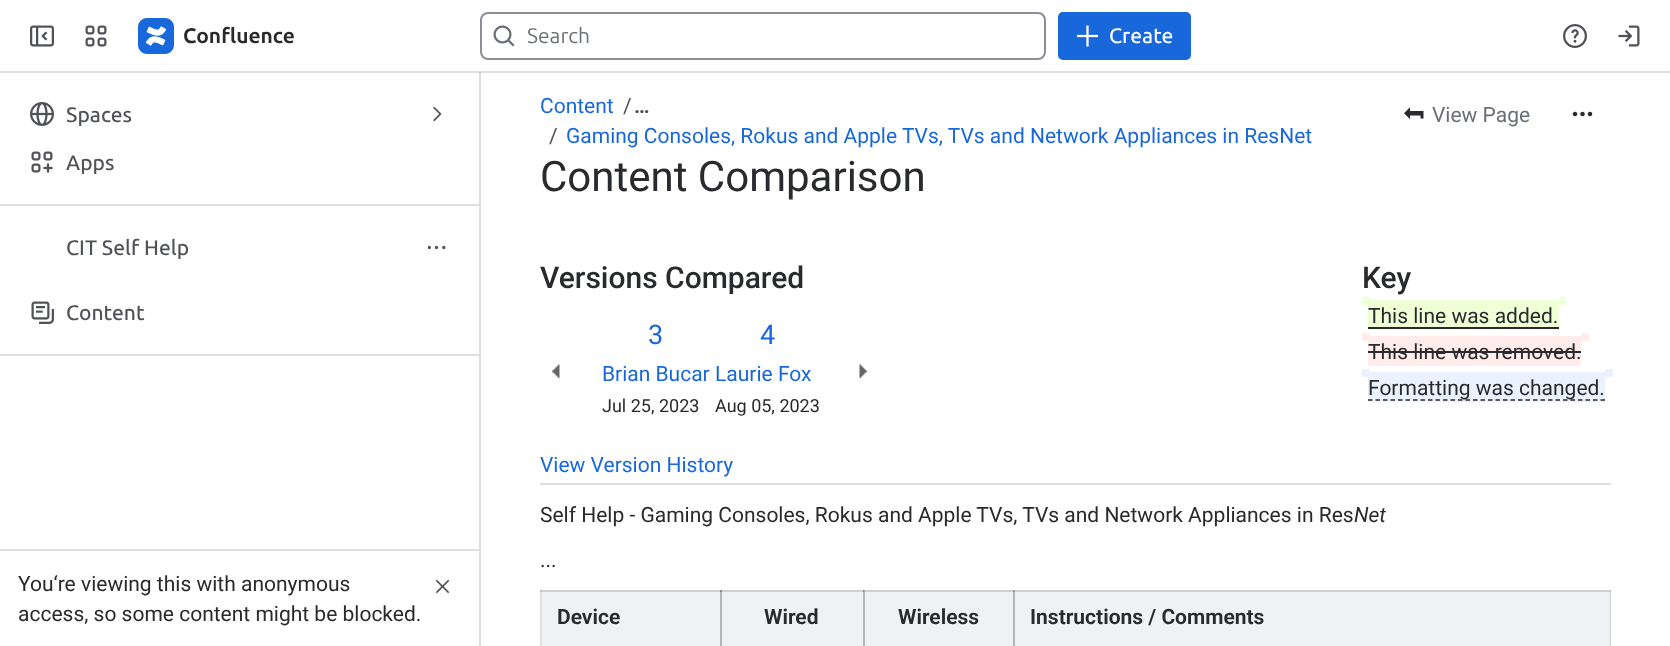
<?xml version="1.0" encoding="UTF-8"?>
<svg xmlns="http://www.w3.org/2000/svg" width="1670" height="646">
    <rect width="100%" height="100%" fill="#FFFFFF"/>
    <rect x="0" y="71" width="1670" height="2" fill="#DDDEDD"/>
    <rect x="540" y="590" width="2" height="56" fill="#DDDEDD"/>
    <rect x="540" y="590" width="2" height="2" fill="#C0C1C0"/>
    <image x="30" y="25" width="24" height="22" href="img_01.png"/>
    <image x="85" y="25" width="22" height="22" href="img_02.png"/>
    <image x="138" y="18" width="36" height="36" href="img_03.png"/>
    <text x="183" y="43" font-family="Ubuntu" font-size="21" font-weight="700" fill="#292A2E">Confluence</text>
    <rect x="481" y="13" width="564" height="46" rx="7" fill="none" stroke="#8C8F97" stroke-width="2"/>
    <image x="493" y="25" width="22" height="22" href="img_04.png"/>
    <text x="527" y="43" font-family="Ubuntu" font-size="21" fill="#6B6E76">Search</text>
    <rect x="1058" y="12" width="133" height="48" rx="5" fill="#1868DB"/>
    <image x="1077" y="25" width="21" height="22" href="img_05.png"/>
    <text x="1109" y="43" font-family="Ubuntu" font-size="21" font-weight="500" fill="#FFFFFF">Create</text>
    <image x="1563" y="24" width="24" height="24" href="img_06.png"/>
    <image x="1618" y="25" width="22" height="22" href="img_07.png"/>
    <rect x="479" y="72" width="2" height="574" fill="#DDDEDD"/>
    <rect x="479" y="72" width="2" height="1" fill="#C0C1C0"/>
    <image x="30" y="102" width="24" height="24" href="img_08.png"/>
    <text x="66" y="122" font-family="Ubuntu" font-size="21" font-weight="500" fill="#505258">Spaces</text>
    <image x="433" y="106" width="9" height="16" href="img_09.png"/>
    <image x="31" y="151" width="22" height="22" href="img_10.png"/>
    <text x="66" y="170" font-family="Ubuntu" font-size="21" font-weight="500" fill="#505258">Apps</text>
    <rect x="0" y="204" width="479" height="2" fill="#DDDEDD"/>
    <text x="66" y="255" font-family="Ubuntu" font-size="21" font-weight="500" fill="#505258">CIT Self Help</text>
    <image x="428" y="245" width="18" height="5" href="img_11.png"/>
    <image x="31" y="301" width="23" height="23" href="img_12.png"/>
    <text x="66" y="320" font-family="Ubuntu" font-size="21" font-weight="500" fill="#505258">Content</text>
    <rect x="0" y="354" width="479" height="2" fill="#DDDEDD"/>
    <rect x="0" y="549" width="479" height="2" fill="#DDDEDD"/>
    <text font-family="Roboto" font-size="21" fill="#292A2E">
        <tspan x="18" y="591">You‘re viewing this with anonymous</tspan>
        <tspan x="18" y="621">access, so some content might be blocked.</tspan>
    </text>
    <image x="435" y="579" width="15" height="15" href="img_13.png"/>
    <text x="540" y="113" font-family="Roboto" font-size="21" fill="#1868DB">Content</text>
    <text x="623" y="113" font-family="Roboto" font-size="21" fill="#505258">/</text>
    <text x="634" y="113" font-family="Roboto" font-size="21" font-weight="700" fill="#505258">…</text>
    <text x="549" y="143" font-family="Roboto" font-size="21" fill="#505258">/</text>
    <text x="566" y="143" font-family="Roboto" font-size="21" fill="#1868DB">Gaming Consoles, Rokus and Apple TVs, TVs and Network Appliances in ResNet</text>
    <text x="540" y="191" font-family="Roboto" font-size="42" fill="#292A2E">Content Comparison</text>
    <image x="1404" y="107" width="20" height="13" href="img_14.png"/>
    <text x="1432" y="122" font-family="Roboto" font-size="21" fill="#6B6E76">View Page</text>
    <image x="1572" y="111" width="21" height="6" href="img_15.png"/>
    <rect x="540" y="483" width="1071" height="2" fill="#DDDEDD"/>
    <text x="540" y="288" font-family="Roboto" font-size="30" font-weight="500" fill="#292A2E">Versions Compared</text>
    <text x="1362" y="288" font-family="Roboto" font-size="30" font-weight="500" fill="#292A2E">Key</text>
    <rect x="1362" y="297" width="8" height="8" fill="#EFFFD6"/>
    <rect x="1368" y="300" width="191" height="30" fill="#EFFFD6"/>
    <text x="1368" y="323" font-family="Roboto" font-size="21" fill="#292A2E">This line was added.</text>
    <rect x="1559" y="297" width="7" height="8" fill="#EFFFD6"/>
    <rect x="1368" y="327" width="191" height="2" fill="#292A2E"/>
    <rect x="1362" y="333" width="8" height="8" fill="#FFECEB"/>
    <rect x="1368" y="336" width="213" height="30" fill="#FFECEB"/>
    <text x="1368" y="359" font-family="Roboto" font-size="21" fill="#292A2E">This line was removed.</text>
    <rect x="1581" y="333" width="8" height="8" fill="#FFECEB"/>
    <rect x="1368" y="351" width="213" height="2" fill="#292A2E"/>
    <rect x="1362" y="369" width="8" height="8" fill="#E9F2FE"/>
    <rect x="1368" y="372" width="237" height="30" fill="#E9F2FE"/>
    <path d="M 1368 400 H 1605" fill="none" stroke="#292A2E" stroke-width="1.5" stroke-dasharray="4.5 3"/>
    <text x="1368" y="395" font-family="Roboto" font-size="21" fill="#292A2E">Formatting was changed.</text>
    <rect x="1605" y="369" width="8" height="8" fill="#E9F2FE"/>
    <text x="648" y="344" font-family="Roboto" font-size="27" fill="#1868DB">3</text>
    <text x="760" y="344" font-family="Roboto" font-size="27" fill="#1868DB">4</text>
    <text x="602" y="381" font-family="Roboto" font-size="21" fill="#1868DB">Brian Bucar</text>
    <text x="715" y="381" font-family="Roboto" font-size="21" fill="#1868DB">Laurie Fox</text>
    <text x="602" y="412" font-family="Roboto" font-size="18" fill="#292A2E">Jul 25, 2023</text>
    <text x="715" y="412" font-family="Roboto" font-size="18" fill="#292A2E">Aug 05, 2023</text>
    <image x="552" y="364" width="8" height="14" href="img_16.png"/>
    <image x="859" y="364" width="8" height="14" href="img_17.png"/>
    <text x="540" y="472" font-family="Roboto" font-size="21" fill="#1868DB">View Version History</text>
    <text x="540" y="522" font-family="Roboto" font-size="21" fill="#292A2E">Self Help - Gaming Consoles, Rokus and Apple TVs, TVs and Network Appliances in Res</text>
    <text x="1354" y="522" font-family="Roboto" font-size="21" font-style="italic" fill="#292A2E">Net</text>
    <text x="540" y="567" font-family="Roboto" font-size="21" fill="#292A2E">...</text>
    <rect x="542" y="592" width="178" height="54" fill="#F0F1F2"/>
    <rect x="542" y="590" width="178" height="2" fill="#D0D2D2"/>
    <text x="557" y="624" font-family="'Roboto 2'" font-size="21" font-weight="700" fill="#292A2E">Device</text>
    <rect x="722" y="592" width="141" height="54" fill="#F0F1F2"/>
    <rect x="720" y="590" width="2" height="56" fill="#B4B7B7"/>
    <rect x="720" y="590" width="143" height="2" fill="#D0D2D2"/>
    <rect x="720" y="590" width="2" height="2" fill="#888C8B"/>
    <text x="764" y="624" font-family="'Roboto 2'" font-size="21" font-weight="700" fill="#292A2E">Wired</text>
    <rect x="865" y="592" width="148" height="54" fill="#F0F1F2"/>
    <rect x="863" y="590" width="2" height="56" fill="#B4B7B7"/>
    <rect x="863" y="590" width="151" height="2" fill="#D0D2D2"/>
    <rect x="863" y="590" width="2" height="2" fill="#9CA09F"/>
    <rect x="863" y="590" width="1" height="2" fill="#888C8B"/>
    <rect x="1013" y="590" width="2" height="56" fill="#B4B7B7"/>
    <text x="898" y="624" font-family="'Roboto 2'" font-size="21" font-weight="700" fill="#292A2E">Wireless</text>
    <rect x="1015" y="592" width="595" height="54" fill="#F0F1F2"/>
    <rect x="1610" y="590" width="1" height="56" fill="#D0D2D2"/>
    <rect x="1013" y="590" width="598" height="2" fill="#D0D2D2"/>
    <rect x="1013" y="590" width="2" height="2" fill="#9CA09F"/>
    <rect x="1013" y="590" width="1" height="2" fill="#888C8B"/>
    <rect x="1610" y="590" width="1" height="2" fill="#B4B7B7"/>
    <text x="1030" y="624" font-family="'Roboto 2'" font-size="21" font-weight="700" fill="#292A2E">Instructions / Comments</text>
</svg>
